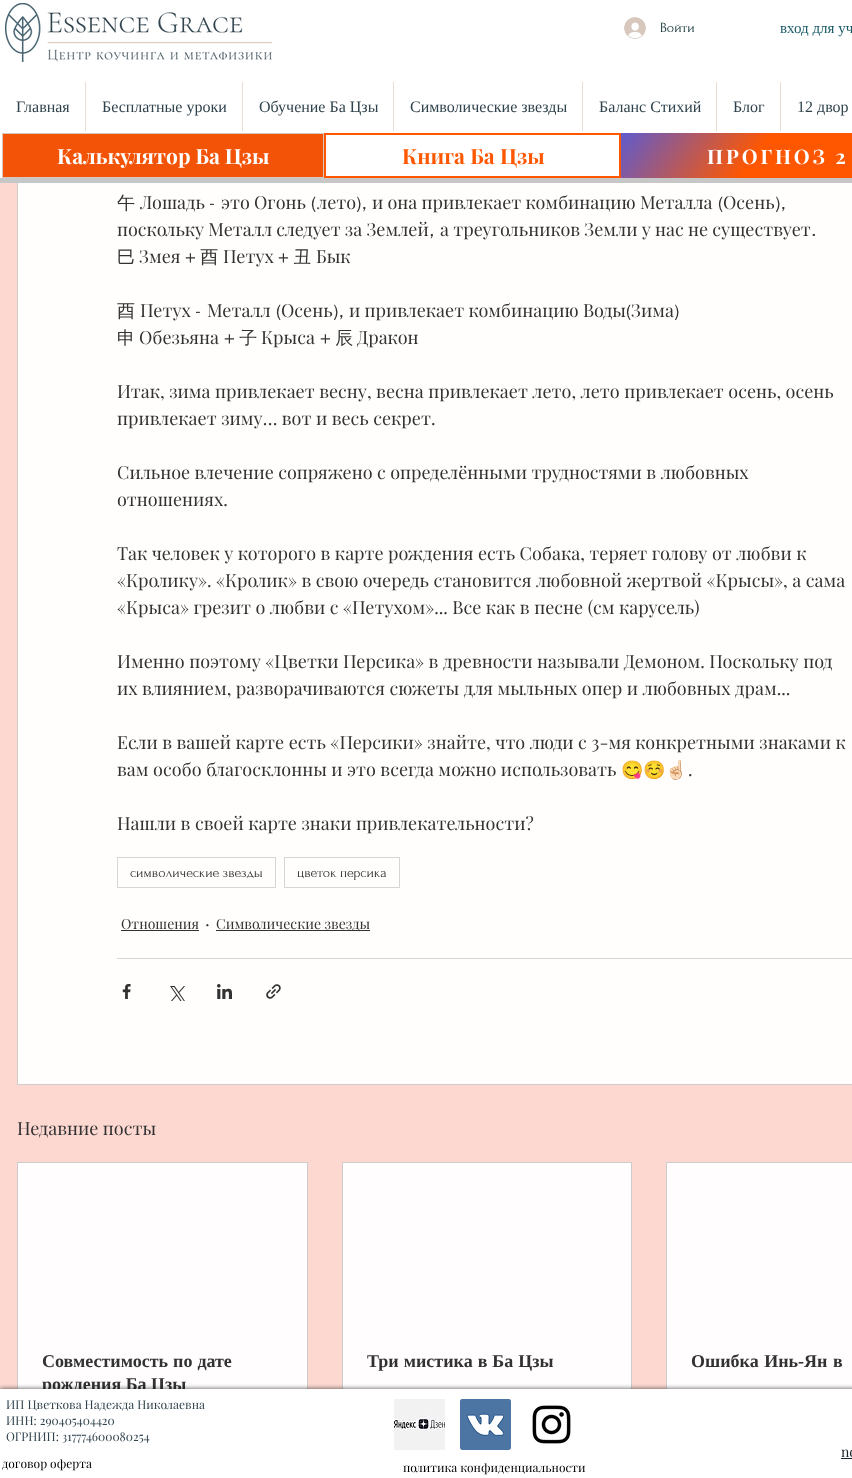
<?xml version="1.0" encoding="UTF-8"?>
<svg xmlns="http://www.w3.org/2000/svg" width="852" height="1478">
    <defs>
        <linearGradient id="g1" gradientUnits="userSpaceOnUse" x1="672" y1="63" x2="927" y2="248"><stop offset="0" stop-color="#5F5BCD"/><stop offset="0.39" stop-color="#FF5700"/></linearGradient>
        <filter id="blur1" x="-50%" y="-200%" width="200%" height="500%"><feGaussianBlur stdDeviation="2.5"/></filter>
    </defs>
    <rect width="100%" height="100%" fill="#FCD8D1"/>
    <rect x="18" y="183" width="834" height="901" fill="#FFFEFD"/>
    <rect x="17.5" y="-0.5" width="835" height="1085" fill="none" stroke="#CDCDCC"/>
    <rect x="0" y="0" width="852" height="178" fill="#FFFFFF"/>
    <rect x="0" y="178" width="852" height="5" fill="#C7C7C7"/>
    <image x="5" y="3" width="267" height="59" href="img_01.png"/>
    <image x="624" y="17" width="22" height="22" href="img_02.png"/>
    <text x="660" y="32" font-family="Forum" font-size="14" fill="#0E2E34">Войти</text>
    <text x="780" y="33" font-family="Liberation Serif" font-size="15" fill="#1C5C69">вход для уч</text>
    <text x="16" y="112" font-family="Liberation Serif" font-size="16" fill="#30434D">Главная</text>
    <rect x="85" y="82" width="1" height="49" fill="#E8DCD5"/>
    <text x="102" y="112" font-family="Liberation Serif" font-size="16" fill="#30434D">Бесплатные уроки</text>
    <rect x="242" y="82" width="1" height="49" fill="#E8DCD5"/>
    <text x="259" y="112" font-family="Liberation Serif" font-size="16" fill="#30434D">Обучение Ба Цзы</text>
    <rect x="393" y="82" width="1" height="49" fill="#E8DCD5"/>
    <text x="410" y="112" font-family="Liberation Serif" font-size="16" fill="#30434D">Символические звезды</text>
    <rect x="582" y="82" width="1" height="49" fill="#E8DCD5"/>
    <text x="599" y="112" font-family="Liberation Serif" font-size="16" fill="#30434D">Баланс Стихий</text>
    <rect x="716" y="82" width="1" height="49" fill="#E8DCD5"/>
    <text x="733" y="112" font-family="Liberation Serif" font-size="16" fill="#30434D">Блог</text>
    <rect x="780" y="82" width="1" height="49" fill="#E8DCD5"/>
    <text x="797" y="112" font-family="Liberation Serif" font-size="16" fill="#30434D">12 двор</text>
    <rect x="2.5" y="133.5" width="321" height="44" fill="#F35306" stroke="#D8C7BD"/>
    <text x="57" y="164" font-family="Playfair Display" font-size="21" font-weight="700" fill="#FFFFFF">Калькулятор Ба Цзы</text>
    <rect x="325" y="134" width="295" height="43" fill="none" stroke="#FF5700" stroke-width="2"/>
    <text x="402" y="164" font-family="'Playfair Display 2'" font-size="21" font-weight="700" fill="#FF5700">Книга Ба Цзы</text>
    <rect x="621" y="133" width="231" height="45" fill="url(#g1)"/>
    <text x="707" y="164" font-family="Playfair Display" font-size="20" font-weight="700" letter-spacing="3" fill="#FFFFFF">ПРОГНОЗ 2</text>
    <text x="117" y="209" font-family="WenQuanYi Zen Hei" font-size="18" font-weight="500" fill="#323232">午</text>
    <text x="140" y="209" font-family="Playfair Display" font-size="18" fill="#323232">Лошадь</text>
    <text x="210" y="209" font-family="WenQuanYi Zen Hei" font-size="18" font-weight="500" fill="#323232">-</text>
    <text x="221" y="209" word-spacing="-0.25" font-family="Playfair Display" font-size="18" fill="#323232">это Огонь</text>
    <text x="311" y="209" font-family="WenQuanYi Zen Hei" font-size="18" font-weight="500" fill="#323232">(</text>
    <text x="317" y="209" font-family="Playfair Display" font-size="18" fill="#323232">лето</text>
    <text x="356" y="209" font-family="WenQuanYi Zen Hei" font-size="18" font-weight="500" fill="#323232">),</text>
    <text x="372" y="209" word-spacing="-0.25" font-family="Playfair Display" font-size="18" fill="#323232">и она привлекает комбинацию Металла</text>
    <text x="718" y="209" font-family="WenQuanYi Zen Hei" font-size="18" font-weight="500" fill="#323232">(</text>
    <text x="723" y="209" font-family="Playfair Display" font-size="18" fill="#323232">Осень</text>
    <text x="775" y="209" font-family="WenQuanYi Zen Hei" font-size="18" font-weight="500" fill="#323232">),</text>
    <text x="117" y="236" word-spacing="-0.25" font-family="Playfair Display" font-size="18" fill="#323232">поскольку Металл следует за Землей</text>
    <text x="429" y="236" font-family="WenQuanYi Zen Hei" font-size="18" font-weight="500" fill="#323232">,</text>
    <text x="440" y="236" word-spacing="-0.25" font-family="Playfair Display" font-size="18" fill="#323232">а треугольников Земли у нас не существует</text>
    <text x="811" y="236" font-family="WenQuanYi Zen Hei" font-size="18" font-weight="500" fill="#323232">.</text>
    <text x="117" y="263" font-family="WenQuanYi Zen Hei" font-size="18" font-weight="500" fill="#323232">巳</text>
    <text x="139" y="263" font-family="Playfair Display" font-size="18" fill="#323232">Змея</text>
    <text x="185" y="263" word-spacing="-1" font-family="WenQuanYi Zen Hei" font-size="18" font-weight="500" fill="#323232">+ 酉</text>
    <text x="223" y="263" font-family="Playfair Display" font-size="18" fill="#323232">Петух</text>
    <text x="278" y="263" word-spacing="-1" font-family="WenQuanYi Zen Hei" font-size="18" font-weight="500" fill="#323232">+ 丑</text>
    <text x="316" y="263" font-family="Playfair Display" font-size="18" fill="#323232">Бык</text>
    <text x="117" y="317" font-family="WenQuanYi Zen Hei" font-size="18" font-weight="500" fill="#323232">酉</text>
    <text x="140" y="317" font-family="Playfair Display" font-size="18" fill="#323232">Петух</text>
    <text x="196" y="317" font-family="WenQuanYi Zen Hei" font-size="18" font-weight="500" fill="#323232">-</text>
    <text x="207" y="317" font-family="Playfair Display" font-size="18" fill="#323232">Металл</text>
    <text x="276" y="317" font-family="WenQuanYi Zen Hei" font-size="18" font-weight="500" fill="#323232">(</text>
    <text x="281" y="317" font-family="Playfair Display" font-size="18" fill="#323232">Осень</text>
    <text x="333" y="317" font-family="WenQuanYi Zen Hei" font-size="18" font-weight="500" fill="#323232">),</text>
    <text x="349" y="317" word-spacing="-0.25" font-family="Playfair Display" font-size="18" fill="#323232">и привлекает комбинацию Воды</text>
    <text x="626" y="317" font-family="WenQuanYi Zen Hei" font-size="18" font-weight="500" fill="#323232">(</text>
    <text x="631" y="317" font-family="Playfair Display" font-size="18" fill="#323232">Зима</text>
    <text x="674" y="317" font-family="WenQuanYi Zen Hei" font-size="18" font-weight="500" fill="#323232">)</text>
    <text x="117" y="344" font-family="WenQuanYi Zen Hei" font-size="18" font-weight="500" fill="#323232">申</text>
    <text x="139" y="344" font-family="Playfair Display" font-size="18" fill="#323232">Обезьяна</text>
    <text x="224" y="344" word-spacing="-1" font-family="WenQuanYi Zen Hei" font-size="18" font-weight="500" fill="#323232">+ 子</text>
    <text x="261" y="344" font-family="Playfair Display" font-size="18" fill="#323232">Крыса</text>
    <text x="320" y="344" word-spacing="-1" font-family="WenQuanYi Zen Hei" font-size="18" font-weight="500" fill="#323232">+ 辰</text>
    <text x="357" y="344" font-family="Playfair Display" font-size="18" fill="#323232">Дракон</text>
    <text font-family="Playfair Display" font-size="18" fill="#323232">
        <tspan x="117" y="398">Итак, зима привлекает весну, весна привлекает лето, лето привлекает осень, осень</tspan>
        <tspan x="117" y="425">привлекает зиму… вот и весь секрет.</tspan>
    </text>
    <text font-family="Playfair Display" font-size="18" fill="#323232">
        <tspan x="117" y="479">Сильное влечение сопряжено с определёнными трудностями в любовных</tspan>
        <tspan x="117" y="506">отношениях.</tspan>
    </text>
    <text font-family="Playfair Display" font-size="18" fill="#323232">
        <tspan x="117" y="560">Так человек у которого в карте рождения есть Собака, теряет голову от любви к</tspan>
        <tspan x="117" y="587">«Кролику». «Кролик» в свою очередь становится любовной жертвой «Крысы», а сама</tspan>
        <tspan x="117" y="614">«Крыса» грезит о любви с «Петухом»... Все как в песне (см карусель)</tspan>
    </text>
    <text font-family="Playfair Display" font-size="18" fill="#323232">
        <tspan x="117" y="668">Именно поэтому «Цветки Персика» в древности называли Демоном. Поскольку под</tspan>
        <tspan x="117" y="695">их влиянием, разворачиваются сюжеты для мыльных опер и любовных драм...</tspan>
    </text>
    <text font-family="Playfair Display" font-size="18" fill="#323232">
        <tspan x="117" y="749">Если в вашей карте есть «Персики» знайте, что люди с 3-мя конкретными знаками к</tspan>
        <tspan x="117" y="776">вам особо благосклонны и это всегда можно использовать</tspan>
    </text>
    <text x="621" y="776" font-family="Noto Color Emoji" font-size="18" fill="#323232">😋☺️☝🏻</text>
    <text x="688" y="776" font-family="Playfair Display" font-size="18" fill="#323232">.</text>
    <text x="117" y="830" font-family="Playfair Display" font-size="18" fill="#323232">Нашли в своей карте знаки привлекательности?</text>
    <rect x="117.5" y="857.5" width="158" height="30" fill="none" stroke="#D6D6D6"/>
    <text x="130" y="877" font-family="Forum" font-size="14" fill="#323232">символические звезды</text>
    <rect x="284.5" y="857.5" width="115" height="30" fill="none" stroke="#D6D6D6"/>
    <text x="297" y="877" font-family="Forum" font-size="14" fill="#323232">цветок персика</text>
    <text x="121" y="929" font-family="Playfair Display" font-size="14" fill="#323232">Отношения</text>
    <rect x="121" y="930" width="78" height="1" fill="#323232"/>
    <text x="205" y="930" font-family="Playfair Display" font-size="18" fill="#323232">·</text>
    <rect x="216" y="930" width="154" height="1" fill="#323232"/>
    <text x="216" y="929" font-family="Playfair Display" font-size="14" fill="#323232">Символические звезды</text>
    <rect x="117" y="958" width="735" height="1" fill="#D6D5D4"/>
    <image x="122" y="984" width="9" height="15" href="img_03.png"/>
    <image x="170" y="986" width="15" height="15" href="img_04.png"/>
    <image x="217" y="984" width="15" height="15" href="img_05.png"/>
    <image x="266" y="984" width="15" height="15" href="img_06.png"/>
    <text x="17" y="1135" font-family="Playfair Display" font-size="18" fill="#323232">Недавние посты</text>
    <rect x="18" y="1163" width="289" height="226" fill="#FFFDFD"/>
    <rect x="17.5" y="1162.5" width="290" height="268" fill="none" stroke="#CDCCCC"/>
    <text font-family="Liberation Serif" font-size="18" font-weight="700" fill="#323232">
        <tspan x="42" y="1367" word-spacing="0.5">Совместимость по дате</tspan>
        <tspan x="42" y="1390">рождения Ба Цзы</tspan>
    </text>
    <rect x="343" y="1163" width="288" height="226" fill="#FFFDFD"/>
    <rect x="342.5" y="1162.5" width="289" height="268" fill="none" stroke="#CDCCCC"/>
    <text x="367" y="1367" word-spacing="0.5" font-family="Liberation Serif" font-size="18" font-weight="700" fill="#323232">Три мистика в Ба Цзы</text>
    <rect x="667" y="1163" width="185" height="226" fill="#FFFDFD"/>
    <rect x="666.5" y="1162.5" width="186" height="268" fill="none" stroke="#CDCCCC"/>
    <text x="691" y="1367" word-spacing="1" font-family="Liberation Serif" font-size="18" font-weight="700" fill="#323232">Ошибка Инь-Ян в</text>
    <rect x="0" y="1389" width="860" height="89" fill="#000000" fill-opacity="0.7" filter="url(#blur1)"/>
    <rect x="0" y="1389" width="852" height="89" fill="#FFFFFF"/>
    <text font-family="Playfair Display" font-size="12" fill="#30434D">
        <tspan x="6" y="1409">ИП Цветкова Надежда Николаевна</tspan>
        <tspan x="6" y="1425">ИНН: 290405404420</tspan>
        <tspan x="6" y="1441">ОГРНИП: 317774600080254</tspan>
    </text>
    <image x="394" y="1399" width="51" height="51" href="img_07.png"/>
    <image x="460" y="1399" width="51" height="51" href="img_08.png"/>
    <image x="532" y="1405" width="39" height="39" href="img_09.png"/>
    <text x="841" y="1457" font-family="Playfair Display" font-size="14" fill="#182226">nc</text>
    <rect x="841" y="1458" width="11" height="1" fill="#182226"/>
    <text x="2" y="1468" font-family="Playfair Display" font-size="12" fill="#000000">договор оферта</text>
    <text x="403" y="1472" font-family="Playfair Display" font-size="12" fill="#000000">политика конфиденциальности</text>
</svg>
